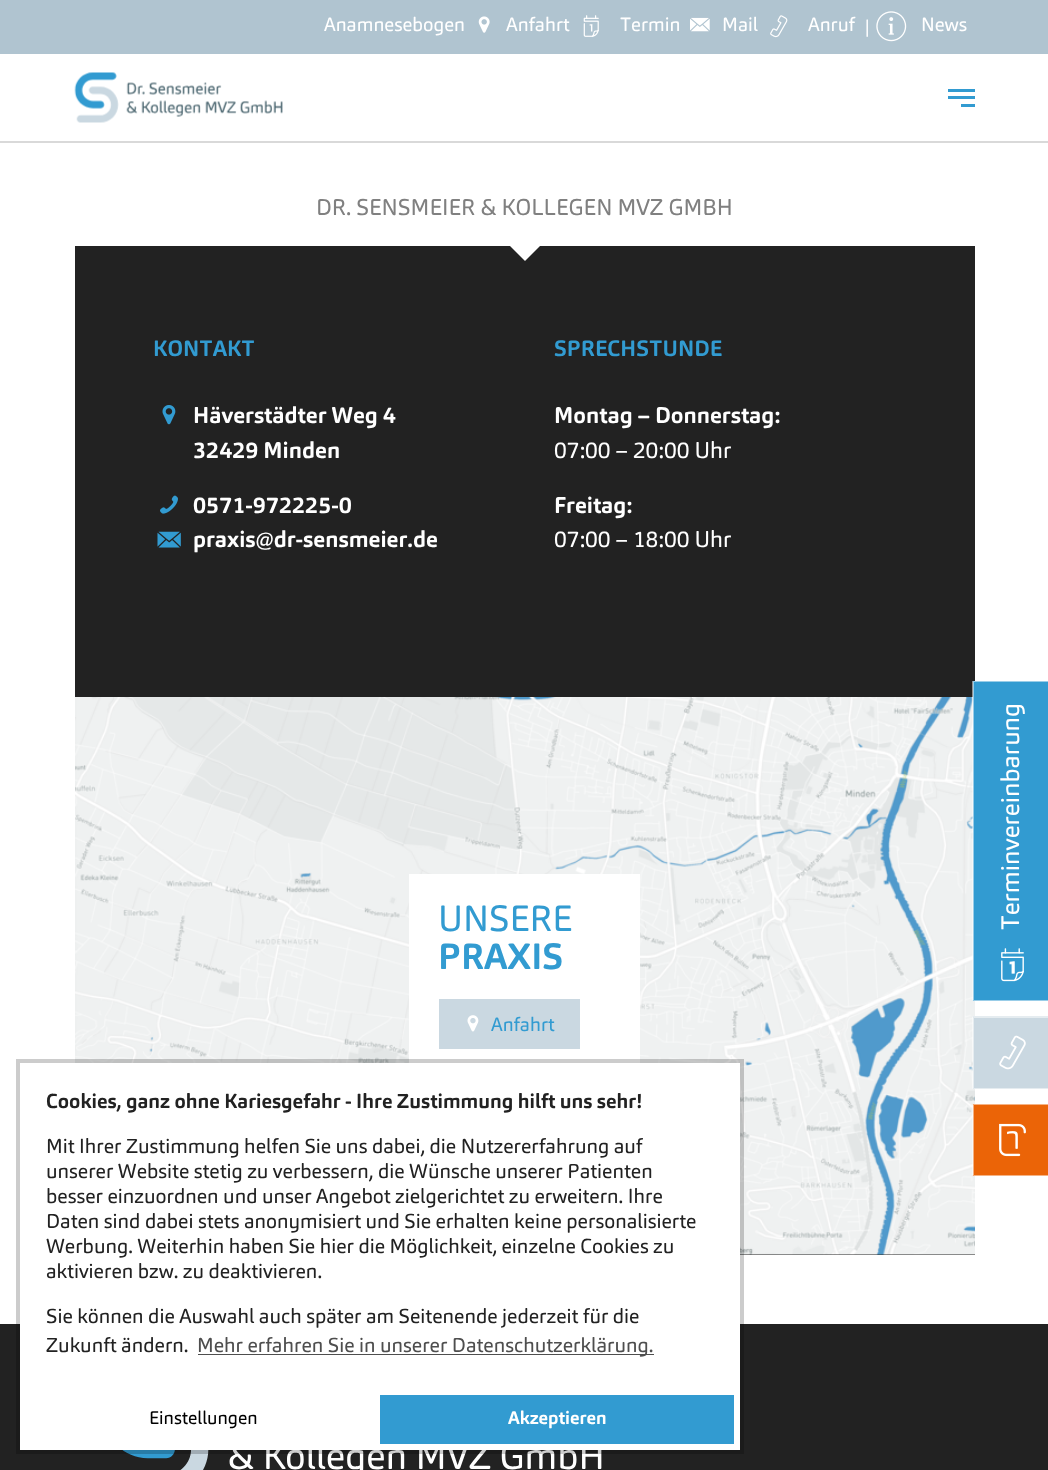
<?xml version="1.0" encoding="UTF-8"?>
<svg xmlns="http://www.w3.org/2000/svg" width="1048" height="1470">
    <rect width="100%" height="100%" fill="#FFFFFF"/>
    <path d="M 0 141 V 143 H 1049 V 1 V 141 Z" fill="#D9D9D9"/>
    <rect x="0" y="0" width="1048" height="54" fill="#B0C4D0"/>
    <text x="324" y="31" font-family="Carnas" font-size="19" fill="#FFFFFF">Anamnesebogen</text>
    <image x="478" y="16" width="12" height="17" href="img_01.png"/>
    <text x="506" y="31" font-family="Carnas" font-size="19" fill="#FFFFFF">Anfahrt</text>
    <image x="583" y="15" width="16" height="22" href="img_02.png"/>
    <text x="620" y="31" font-family="Carnas" font-size="19" fill="#FFFFFF">Termin</text>
    <image x="690" y="17" width="20" height="15" href="img_03.png"/>
    <text x="722" y="31" font-family="Carnas" font-size="19" fill="#FFFFFF">Mail</text>
    <image x="770" y="15" width="18" height="23" href="img_04.png"/>
    <text x="808" y="31" font-family="Carnas" font-size="19" fill="#FFFFFF">Anruf</text>
    <text x="865" y="34" font-family="Carnas" font-size="19" fill="#FFFFFF">|</text>
    <image x="876" y="11" width="31" height="31" href="img_05.png"/>
    <text x="921" y="31" font-family="Carnas" font-size="19" fill="#FFFFFF">News</text>
    <image x="74" y="72" width="209" height="51" href="img_06.png"/>
    <rect x="948" y="96" width="27" height="3" fill="#329BD1"/>
    <rect x="948" y="89" width="27" height="3" fill="#329BD1"/>
    <rect x="961" y="104" width="14" height="3" fill="#329BD1"/>
    <rect x="75" y="246" width="900" height="1009" fill="#222222"/>
    <text x="316" y="215" font-family="Carnas" font-size="22.5" fill="#808080">DR. SENSMEIER &amp; KOLLEGEN MVZ GMBH</text>
    <path d="M 510 246 H 540 L 525 261 Z" fill="#FFFFFF"/>
    <text x="153" y="356" font-family="Carnas" font-size="22" font-weight="700" fill="#329BD1">KONTAKT</text>
    <image x="162" y="405" width="14" height="20" href="img_07.png"/>
    <text font-family="Carnas" font-size="22.5" font-weight="700" fill="#FFFFFF">
        <tspan x="193" y="423">Häverstädter Weg 4</tspan>
        <tspan x="193" y="458">32429 Minden</tspan>
    </text>
    <image x="160" y="495" width="18" height="19" href="img_08.png"/>
    <text x="193" y="513" font-family="Carnas" font-size="22.5" font-weight="700" fill="#FFFFFF">0571-972225-0</text>
    <image x="157" y="531" width="24" height="17" href="img_09.png"/>
    <text x="193" y="547" font-family="Carnas" font-size="22.5" font-weight="700" fill="#FFFFFF">praxis@dr-sensmeier.de</text>
    <text x="554" y="356" font-family="Carnas" font-size="22" font-weight="700" fill="#329BD1">SPRECHSTUNDE</text>
    <text x="554" y="423" font-family="Carnas" font-size="22.5" font-weight="700" fill="#FFFFFF">Montag – Donnerstag:</text>
    <text x="554" y="458" font-family="Carnas" font-size="22.5" fill="#FFFFFF">07:00 – 20:00 Uhr</text>
    <text x="554" y="513" font-family="Carnas" font-size="22.5" font-weight="700" fill="#FFFFFF">Freitag:</text>
    <text x="554" y="547" font-family="Carnas" font-size="22.5" fill="#FFFFFF">07:00 – 18:00 Uhr</text>
    <image x="75" y="697" width="900" height="558" href="img_10.png"/>
    <rect x="409" y="874" width="231" height="189" fill="#FFFFFF"/>
    <text x="438" y="931" font-family="Carnas" font-size="36" fill="#329BD1">UNSERE</text>
    <text x="438" y="969" font-family="Carnas" font-size="36" font-weight="700" fill="#329BD1">PRAXIS</text>
    <rect x="439" y="999" width="141" height="50" fill="#CAD8E1"/>
    <image x="467" y="1015" width="12" height="17" href="img_11.png"/>
    <text x="491" y="1031" font-family="Carnas" font-size="19" fill="#329BD1">Anfahrt</text>
    <rect x="0" y="1324" width="1048" height="146" fill="#222222"/>
    <rect x="973" y="681" width="75" height="320" fill="#329BD1"/>
    <path d="M 972 681 H 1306 V 682 H 974 Z" fill="#99CDE8"/>
    <path d="M 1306 1001 H 972 L 974 1000 H 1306 Z" fill="#99CDE8"/>
    <path d="M 972 1001 V 681 L 974 682 V 1000 Z" fill="#FFFFFF" fill-opacity="0.5"/>
    <text x="1019" y="930" transform="rotate(-90 1019 930)" font-family="Carnas" font-size="25" fill="#FFFFFF">Terminvereinbarung</text>
    <image x="1001" y="948" width="23" height="34" href="img_12.png"/>
    <rect x="973" y="1017" width="75" height="72" fill="#CAD8E1"/>
    <path d="M 972 1016 H 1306 V 1018 H 974 Z" fill="#E5ECF0"/>
    <path d="M 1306 1089 H 972 L 974 1088 H 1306 Z" fill="#E5ECF0"/>
    <path d="M 972 1089 V 1016 L 974 1018 V 1088 Z" fill="#FFFFFF" fill-opacity="0.5"/>
    <image x="999" y="1035" width="27" height="35" href="img_13.png"/>
    <rect x="973" y="1104" width="75" height="72" fill="#EB6407"/>
    <path d="M 972 1104 H 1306 V 1105 H 974 Z" fill="#F5B283"/>
    <path d="M 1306 1176 H 972 L 974 1175 H 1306 Z" fill="#F5B283"/>
    <path d="M 972 1176 V 1104 L 974 1105 V 1175 Z" fill="#FFFFFF" fill-opacity="0.5"/>
    <image x="999" y="1123" width="27" height="34" href="img_14.png"/>
    <image x="122" y="1450" width="480" height="20" href="img_15.png"/>
    <rect x="18" y="1061" width="724" height="391" fill="none" stroke="#000000" stroke-opacity="0.2" stroke-width="4"/>
    <rect x="20" y="1063" width="720" height="387" fill="#FFFFFF"/>
    <text x="46" y="1108" font-family="Carnas" font-size="20" font-weight="700" fill="#222222">Cookies, ganz ohne Kariesgefahr - Ihre Zustimmung hilft uns sehr!</text>
    <text font-family="Carnas" font-size="20" fill="#222222">
        <tspan x="46" y="1153">Mit Ihrer Zustimmung helfen Sie uns dabei, die Nutzererfahrung auf</tspan>
        <tspan x="46" y="1178">unserer Website stetig zu verbessern, die Wünsche unserer Patienten</tspan>
        <tspan x="46" y="1203">besser einzuordnen und unser Angebot zielgerichtet zu erweitern. Ihre</tspan>
        <tspan x="46" y="1228">Daten sind dabei stets anonymisiert und Sie erhalten keine personalisierte</tspan>
        <tspan x="46" y="1253">Werbung. Weiterhin haben Sie hier die Möglichkeit, einzelne Cookies zu</tspan>
        <tspan x="46" y="1278">aktivieren bzw. zu deaktivieren.</tspan>
    </text>
    <text font-family="Carnas" font-size="20" fill="#222222">
        <tspan x="46" y="1323">Sie können die Auswahl auch später am Seitenende jederzeit für die</tspan>
        <tspan x="46" y="1352">Zukunft ändern.</tspan>
    </text>
    <rect x="198" y="1354" width="456" height="1" fill="#4E4E4E"/>
    <text x="197" y="1352" font-family="Carnas" font-size="20" fill="#4E4E4E">Mehr erfahren Sie in unserer Datenschutzerklärung.</text>
    <text x="149" y="1424" font-family="Carnas" font-size="18" fill="#000000">Einstellungen</text>
    <rect x="380" y="1395" width="354" height="49" fill="#329BD1"/>
    <text x="508" y="1424" font-family="Carnas" font-size="18" font-weight="700" fill="#FFFFFF">Akzeptieren</text>
</svg>
